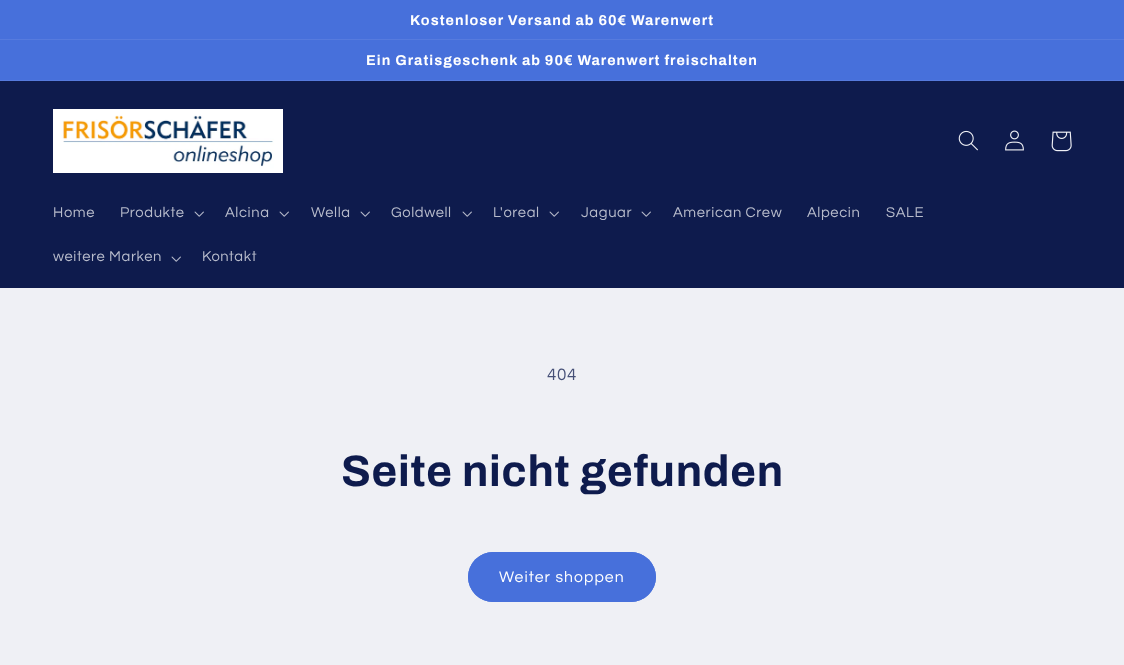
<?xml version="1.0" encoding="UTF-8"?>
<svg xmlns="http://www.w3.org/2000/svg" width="1124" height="665">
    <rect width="100%" height="100%" fill="#EFF0F5"/>
    <rect x="0" y="0" width="1124" height="39" fill="#4770DB"/>
    <rect x="0" y="39" width="1124" height="1" fill="#567BDE"/>
    <text x="410" y="25" font-family="Archivo" font-size="14.3" font-weight="700" letter-spacing="1.05" fill="#FFFFFF">Kostenloser Versand ab 60€ Warenwert</text>
    <rect x="0" y="40" width="1124" height="40" fill="#4770DB"/>
    <rect x="0" y="80" width="1124" height="1" fill="#567BDE"/>
    <text x="366" y="65" font-family="Archivo" font-size="14.3" font-weight="700" letter-spacing="1.05" fill="#FFFFFF">Ein Gratisgeschenk ab 90€ Warenwert freischalten</text>
    <rect x="0" y="81" width="1124" height="207" fill="#0E1B4D"/>
    <image x="53" y="109" width="230" height="64" href="img_01.png"/>
    <image x="958" y="130" width="20" height="21" href="img_02.png"/>
    <image x="1005" y="130" width="19" height="21" href="img_03.png"/>
    <image x="1051" y="131" width="21" height="21" href="img_04.png"/>
    <text x="53" y="217" font-family="Questrial" font-size="14.75" letter-spacing="0.6" fill="#B7BBCB">Home</text>
    <text x="120" y="217" font-family="Questrial" font-size="14.75" letter-spacing="0.6" fill="#B7BBCB">Produkte</text>
    <image x="194" y="211" width="10" height="6" href="img_05.png"/>
    <text x="225" y="217" font-family="Questrial" font-size="14.75" letter-spacing="0.6" fill="#B7BBCB">Alcina</text>
    <image x="279" y="211" width="10" height="6" href="img_05.png"/>
    <text x="311" y="217" font-family="Questrial" font-size="14.75" letter-spacing="0.6" fill="#B7BBCB">Wella</text>
    <image x="360" y="211" width="10" height="6" href="img_05.png"/>
    <text x="391" y="217" font-family="Questrial" font-size="14.75" letter-spacing="0.6" fill="#B7BBCB">Goldwell</text>
    <image x="462" y="211" width="10" height="6" href="img_05.png"/>
    <text x="493" y="217" font-family="Questrial" font-size="14.75" letter-spacing="0.6" fill="#B7BBCB">L'oreal</text>
    <image x="549" y="211" width="10" height="6" href="img_05.png"/>
    <text x="581" y="217" font-family="Questrial" font-size="14.75" letter-spacing="0.6" fill="#B7BBCB">Jaguar</text>
    <image x="641" y="211" width="10" height="6" href="img_05.png"/>
    <text x="673" y="217" font-family="Questrial" font-size="14.75" letter-spacing="0.6" fill="#B7BBCB">American Crew</text>
    <text x="807" y="217" font-family="Questrial" font-size="14.75" letter-spacing="0.6" fill="#B7BBCB">Alpecin</text>
    <text x="886" y="217" font-family="Questrial" font-size="14.75" letter-spacing="0.6" fill="#B7BBCB">SALE</text>
    <text x="53" y="261" font-family="Questrial" font-size="14.75" letter-spacing="0.6" fill="#B7BBCB">weitere Marken</text>
    <image x="171" y="256" width="10" height="6" href="img_05.png"/>
    <text x="202" y="261" font-family="Questrial" font-size="14.75" letter-spacing="0.6" fill="#B7BBCB">Kontakt</text>
    <text x="547" y="380" font-family="Questrial" font-size="17" letter-spacing="0.6" fill="#465077">404</text>
    <text x="341" y="486" font-family="Archivo" font-size="44" font-weight="700" letter-spacing="0.7" fill="#0E1B4D">Seite nicht gefunden</text>
    <rect x="468" y="552" width="188" height="50" rx="25" fill="#4770DB"/>
    <rect x="468.5" y="552.5" width="187" height="49" rx="24.5" fill="none" stroke="#4770DB"/>
    <text x="499" y="582" font-family="Questrial" font-size="15.75" letter-spacing="1.05" fill="#FFFFFF">Weiter shoppen</text>
</svg>
